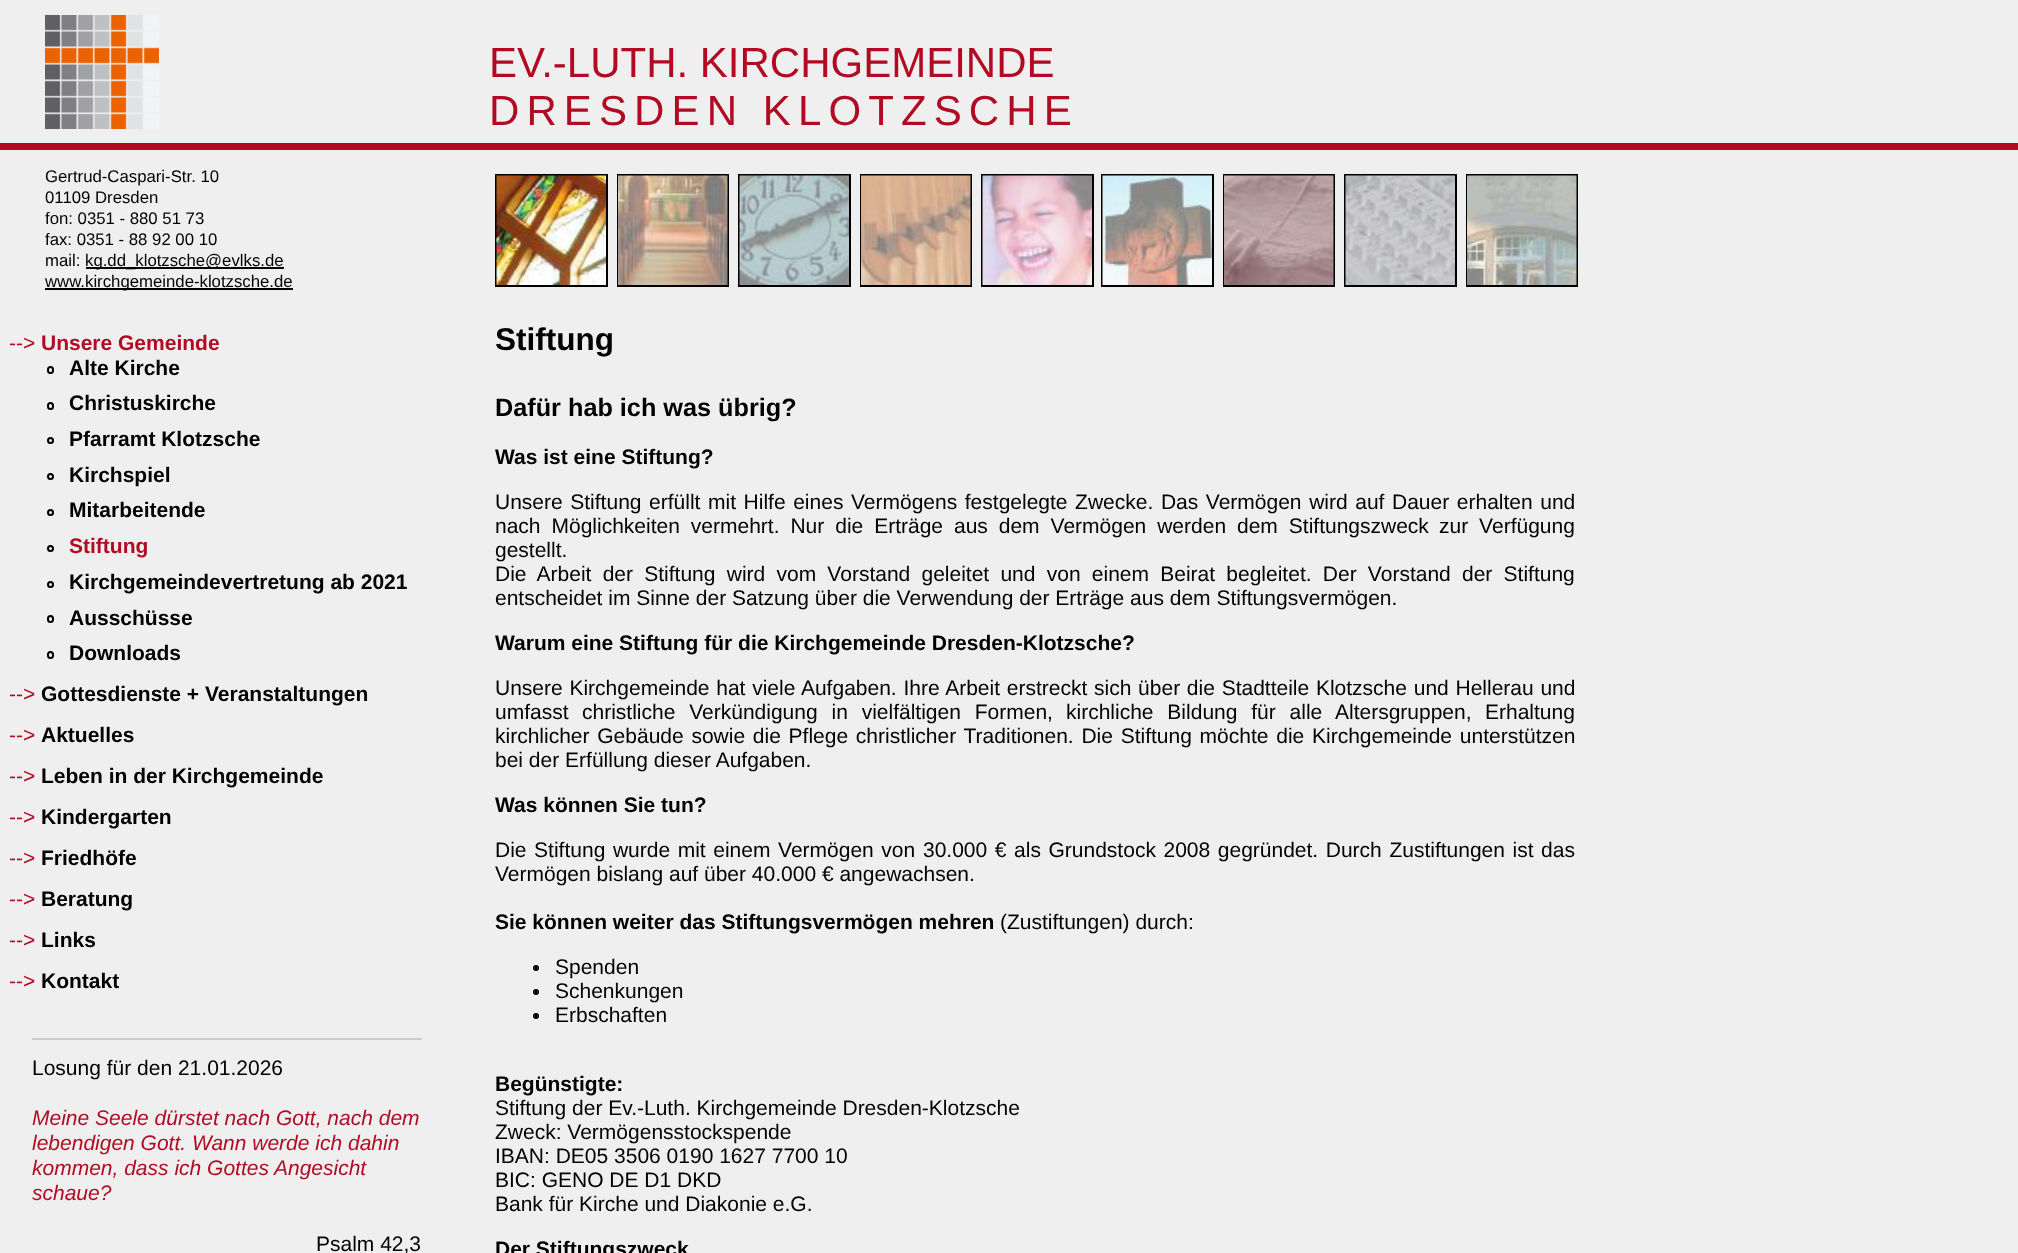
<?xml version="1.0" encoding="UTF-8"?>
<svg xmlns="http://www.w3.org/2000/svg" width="2018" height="1253">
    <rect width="100%" height="100%" fill="#EFEFEF"/>
    <rect x="0" y="143" width="2018" height="7" fill="#B10A23"/>
    <image x="45" y="15" width="114" height="114" href="img_01.png"/>
    <text x="489" y="77" font-family="Liberation Sans" font-size="42" fill="#B10A23">EV.-LUTH. KIRCHGEMEINDE</text>
    <text x="489" y="125" font-family="Liberation Sans" font-size="42" letter-spacing="7.1" fill="#B10A23">DRESDEN KLOTZSCHE</text>
    <text font-family="Liberation Sans" font-size="16.75" fill="#000000">
        <tspan x="45" y="182">Gertrud-Caspari-Str. 10</tspan>
        <tspan x="45" y="203">01109 Dresden</tspan>
        <tspan x="45" y="224">fon: 0351 - 880 51 73</tspan>
        <tspan x="45" y="245">fax: 0351 - 88 92 00 10</tspan>
        <tspan x="45" y="266">mail:</tspan>
    </text>
    <rect x="86" y="267" width="198" height="2" fill="#000000"/>
    <text x="85" y="266" font-family="Liberation Sans" font-size="16.75" fill="#000000">kg.dd_klotzsche@evlks.de</text>
    <rect x="45" y="288" width="248" height="2" fill="#000000"/>
    <text x="45" y="287" font-family="Liberation Sans" font-size="16.75" fill="#000000">www.kirchgemeinde-klotzsche.de</text>
    <rect x="496" y="175" width="111" height="111" fill="none" stroke="#000000" stroke-width="2"/>
    <rect x="618" y="175" width="110" height="111" fill="none" stroke="#000000" stroke-width="2"/>
    <rect x="739" y="175" width="111" height="111" fill="none" stroke="#000000" stroke-width="2"/>
    <rect x="861" y="175" width="110" height="111" fill="none" stroke="#000000" stroke-width="2"/>
    <rect x="982" y="175" width="111" height="111" fill="none" stroke="#000000" stroke-width="2"/>
    <rect x="1102" y="175" width="111" height="111" fill="none" stroke="#000000" stroke-width="2"/>
    <rect x="1224" y="175" width="110" height="111" fill="none" stroke="#000000" stroke-width="2"/>
    <rect x="1345" y="175" width="111" height="111" fill="none" stroke="#000000" stroke-width="2"/>
    <rect x="1467" y="175" width="110" height="111" fill="none" stroke="#000000" stroke-width="2"/>
    <image x="496" y="175" width="110" height="110" href="img_02.png"/>
    <image x="618" y="175" width="110" height="110" href="img_03.png"/>
    <image x="739" y="175" width="110" height="110" href="img_04.png"/>
    <image x="861" y="175" width="110" height="110" href="img_05.png"/>
    <image x="982" y="175" width="110" height="110" href="img_06.png"/>
    <image x="1102" y="175" width="110" height="110" href="img_07.png"/>
    <image x="1224" y="175" width="110" height="110" href="img_08.png"/>
    <image x="1345" y="175" width="110" height="110" href="img_09.png"/>
    <image x="1467" y="175" width="110" height="110" href="img_10.png"/>
    <text x="9" y="350" font-family="Liberation Sans" font-size="21" fill="#B10A23">--&gt;</text>
    <text x="41" y="350" font-family="Liberation Sans" font-size="21" font-weight="700" fill="#B10A23">Unsere Gemeinde</text>
    <rect x="48" y="367" width="5" height="6" rx="2.5" fill="none" stroke="#000000" stroke-width="2"/>
    <text x="69" y="375" font-family="Liberation Sans" font-size="21" font-weight="700" fill="#000000">Alte Kirche</text>
    <rect x="48" y="403" width="5" height="6" rx="2.5" fill="none" stroke="#000000" stroke-width="2"/>
    <text x="69" y="410" font-family="Liberation Sans" font-size="21" font-weight="700" fill="#000000">Christuskirche</text>
    <circle cx="50.5" cy="440.5" r="2.5" fill="none" stroke="#000000" stroke-width="2"/>
    <text x="69" y="446" font-family="Liberation Sans" font-size="21" font-weight="700" fill="#000000">Pfarramt Klotzsche</text>
    <circle cx="50.5" cy="476.5" r="2.5" fill="none" stroke="#000000" stroke-width="2"/>
    <text x="69" y="482" font-family="Liberation Sans" font-size="21" font-weight="700" fill="#000000">Kirchspiel</text>
    <circle cx="50.5" cy="512.5" r="2.5" fill="none" stroke="#000000" stroke-width="2"/>
    <text x="69" y="517" font-family="Liberation Sans" font-size="21" font-weight="700" fill="#000000">Mitarbeitende</text>
    <circle cx="50.5" cy="548.5" r="2.5" fill="none" stroke="#000000" stroke-width="2"/>
    <text x="69" y="553" font-family="Liberation Sans" font-size="21" font-weight="700" fill="#B10A23">Stiftung</text>
    <circle cx="50.5" cy="584.5" r="2.5" fill="none" stroke="#000000" stroke-width="2"/>
    <text x="69" y="589" font-family="Liberation Sans" font-size="21" font-weight="700" fill="#000000">Kirchgemeindevertretung ab 2021</text>
    <rect x="48" y="616" width="5" height="6" rx="2.5" fill="none" stroke="#000000" stroke-width="2"/>
    <text x="69" y="625" font-family="Liberation Sans" font-size="21" font-weight="700" fill="#000000">Ausschüsse</text>
    <rect x="48" y="652" width="5" height="6" rx="2.5" fill="none" stroke="#000000" stroke-width="2"/>
    <text x="69" y="660" font-family="Liberation Sans" font-size="21" font-weight="700" fill="#000000">Downloads</text>
    <text x="9" y="701" font-family="Liberation Sans" font-size="21" fill="#B10A23">--&gt;</text>
    <text x="41" y="701" font-family="Liberation Sans" font-size="21" font-weight="700" fill="#000000">Gottesdienste + Veranstaltungen</text>
    <text x="9" y="742" font-family="Liberation Sans" font-size="21" fill="#B10A23">--&gt;</text>
    <text x="41" y="742" font-family="Liberation Sans" font-size="21" font-weight="700" fill="#000000">Aktuelles</text>
    <text x="9" y="783" font-family="Liberation Sans" font-size="21" fill="#B10A23">--&gt;</text>
    <text x="41" y="783" font-family="Liberation Sans" font-size="21" font-weight="700" fill="#000000">Leben in der Kirchgemeinde</text>
    <text x="9" y="824" font-family="Liberation Sans" font-size="21" fill="#B10A23">--&gt;</text>
    <text x="41" y="824" font-family="Liberation Sans" font-size="21" font-weight="700" fill="#000000">Kindergarten</text>
    <text x="9" y="865" font-family="Liberation Sans" font-size="21" fill="#B10A23">--&gt;</text>
    <text x="41" y="865" font-family="Liberation Sans" font-size="21" font-weight="700" fill="#000000">Friedhöfe</text>
    <text x="9" y="906" font-family="Liberation Sans" font-size="21" fill="#B10A23">--&gt;</text>
    <text x="41" y="906" font-family="Liberation Sans" font-size="21" font-weight="700" fill="#000000">Beratung</text>
    <text x="9" y="947" font-family="Liberation Sans" font-size="21" fill="#B10A23">--&gt;</text>
    <text x="41" y="947" font-family="Liberation Sans" font-size="21" font-weight="700" fill="#000000">Links</text>
    <text x="9" y="988" font-family="Liberation Sans" font-size="21" fill="#B10A23">--&gt;</text>
    <text x="41" y="988" font-family="Liberation Sans" font-size="21" font-weight="700" fill="#000000">Kontakt</text>
    <rect x="32" y="1038" width="390" height="2" fill="#CCCCCC"/>
    <text x="32" y="1075" font-family="Liberation Sans" font-size="21" fill="#000000">Losung für den 21.01.2026</text>
    <text font-family="Liberation Sans" font-size="21" font-style="italic" fill="#B10A23">
        <tspan x="32" y="1125">Meine Seele dürstet nach Gott, nach dem</tspan>
        <tspan x="32" y="1150">lebendigen Gott. Wann werde ich dahin</tspan>
        <tspan x="32" y="1175">kommen, dass ich Gottes Angesicht</tspan>
        <tspan x="32" y="1200">schaue?</tspan>
    </text>
    <text x="316" y="1251" font-family="Liberation Sans" font-size="21" fill="#000000">Psalm 42,3</text>
    <text x="495" y="350" font-family="Liberation Sans" font-size="31.5" font-weight="700" fill="#000000">Stiftung</text>
    <text x="495" y="416" font-family="Liberation Sans" font-size="25.25" font-weight="700" fill="#000000">Dafür hab ich was übrig?</text>
    <text x="495" y="464" font-family="Liberation Sans" font-size="21" font-weight="700" fill="#000000">Was ist eine Stiftung?</text>
    <text font-family="Liberation Sans" font-size="21" fill="#000000">
        <tspan x="495" y="509" word-spacing="1.75">Unsere Stiftung erfüllt mit Hilfe eines Vermögens festgelegte Zwecke. Das Vermögen wird auf Dauer erhalten und</tspan>
        <tspan x="495" y="533" word-spacing="5.1">nach Möglichkeiten vermehrt. Nur die Erträge aus dem Vermögen werden dem Stiftungszweck</tspan>
    </text>
    <text x="1439" y="533" word-spacing="5.1" font-family="Liberation Sans" font-size="21" fill="#000000">zur Verfügung</text>
    <text font-family="Liberation Sans" font-size="21" fill="#000000">
        <tspan x="495" y="557">gestellt.</tspan>
        <tspan x="495" y="581" word-spacing="5.4">Die Arbeit der Stiftung wird vom Vorstand geleitet und von einem Beirat begleitet. Der Vorstand der Stiftung</tspan>
        <tspan x="495" y="605">entscheidet im Sinne der Satzung über die Verwendung der Erträge aus dem Stiftungsvermögen.</tspan>
    </text>
    <text x="495" y="650" font-family="Liberation Sans" font-size="21" font-weight="700" fill="#000000">Warum eine Stiftung für die Kirchgemeinde Dresden-Klotzsche?</text>
    <text font-family="Liberation Sans" font-size="21" fill="#000000">
        <tspan x="495" y="695" word-spacing="0.9">Unsere Kirchgemeinde hat viele Aufgaben. Ihre Arbeit erstreckt sich über die Stadtteile Klotzsche und Hellerau und</tspan>
        <tspan x="495" y="719">umfasst</tspan>
    </text>
    <text x="582" y="719" word-spacing="8" font-family="Liberation Sans" font-size="21" fill="#000000">christliche Verkündigung in vielfältigen Formen,</text>
    <text x="1066" y="719" word-spacing="8" font-family="Liberation Sans" font-size="21" fill="#000000">kirchliche Bildung für alle Altersgruppen,</text>
    <text x="1485" y="719" font-family="Liberation Sans" font-size="21" fill="#000000">Erhaltung</text>
    <text font-family="Liberation Sans" font-size="21" fill="#000000">
        <tspan x="495" y="743" word-spacing="1.9">kirchlicher Gebäude sowie die Pflege christlicher Traditionen. Die Stiftung möchte die Kirchgemeinde unterstützen</tspan>
        <tspan x="495" y="767">bei der Erfüllung dieser Aufgaben.</tspan>
    </text>
    <text x="495" y="812" font-family="Liberation Sans" font-size="21" font-weight="700" fill="#000000">Was können Sie tun?</text>
    <text x="495" y="857" word-spacing="1.75" font-family="Liberation Sans" font-size="21" fill="#000000">Die Stiftung wurde mit einem Vermögen von</text>
    <text x="923" y="857" word-spacing="1.75" font-family="Liberation Sans" font-size="21" fill="#000000">30.000 € als Grundstock 2008 gegründet. Durch Zustiftungen ist das</text>
    <text x="495" y="881" font-family="Liberation Sans" font-size="21" fill="#000000">Vermögen bislang auf über 40.000 € angewachsen.</text>
    <text x="495" y="929" font-family="Liberation Sans" font-size="21" font-weight="700" fill="#000000">Sie können weiter das Stiftungsvermögen mehren</text>
    <text x="1000" y="929" font-family="Liberation Sans" font-size="21" fill="#000000">(Zustiftungen) durch:</text>
    <circle cx="536" cy="968" r="3" fill="#000000"/>
    <text x="555" y="974" font-family="Liberation Sans" font-size="21" fill="#000000">Spenden</text>
    <circle cx="536" cy="992" r="3" fill="#000000"/>
    <text x="555" y="998" font-family="Liberation Sans" font-size="21" fill="#000000">Schenkungen</text>
    <circle cx="536" cy="1016" r="3" fill="#000000"/>
    <text x="555" y="1022" font-family="Liberation Sans" font-size="21" fill="#000000">Erbschaften</text>
    <text x="495" y="1091" font-family="Liberation Sans" font-size="21" font-weight="700" fill="#000000">Begünstigte:</text>
    <text font-family="Liberation Sans" font-size="21" fill="#000000">
        <tspan x="495" y="1115">Stiftung der Ev.-Luth. Kirchgemeinde Dresden-Klotzsche</tspan>
        <tspan x="495" y="1139">Zweck: Vermögensstockspende</tspan>
        <tspan x="495" y="1163">IBAN: DE05 3506 0190 1627 7700 10</tspan>
        <tspan x="495" y="1187">BIC: GENO DE D1 DKD</tspan>
        <tspan x="495" y="1211">Bank für Kirche und Diakonie e.G.</tspan>
    </text>
    <text x="495" y="1256" font-family="Liberation Sans" font-size="21" font-weight="700" fill="#000000">Der Stiftungszweck</text>
</svg>
